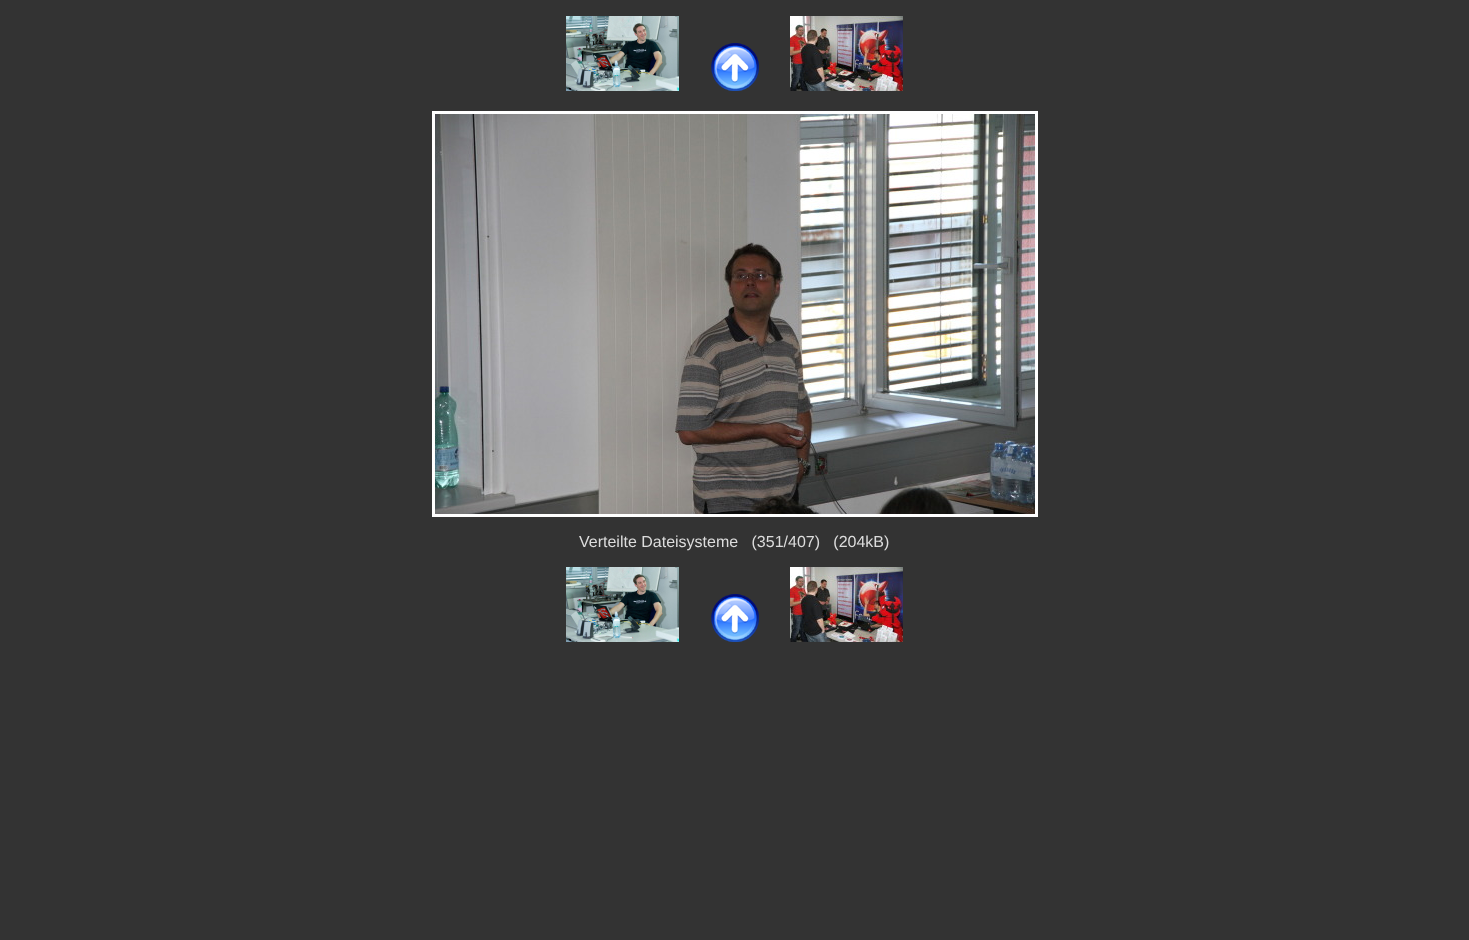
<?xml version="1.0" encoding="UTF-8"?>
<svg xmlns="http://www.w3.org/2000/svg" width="1469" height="940">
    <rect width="100%" height="100%" fill="#333333"/>
    <image x="566" y="16" width="113" height="75" href="img_01.png"/>
    <image x="711" y="43" width="48" height="48" href="img_02.png"/>
    <image x="790" y="16" width="113" height="75" href="img_03.png"/>
    <rect x="433.5" y="112.5" width="603" height="403" fill="none" stroke="#FFFFFF" stroke-width="3"/>
    <image x="435" y="114" width="600" height="400" href="img_04.png"/>
    <text x="579" y="547" font-family="Liberation Sans" font-size="16" fill="#DDDDDD" xml:space="preserve">Verteilte Dateisysteme   (351/407)   (204kB)</text>
    <image x="566" y="567" width="113" height="75" href="img_01.png"/>
    <image x="711" y="594" width="48" height="48" href="img_02.png"/>
    <image x="790" y="567" width="113" height="75" href="img_03.png"/>
</svg>
